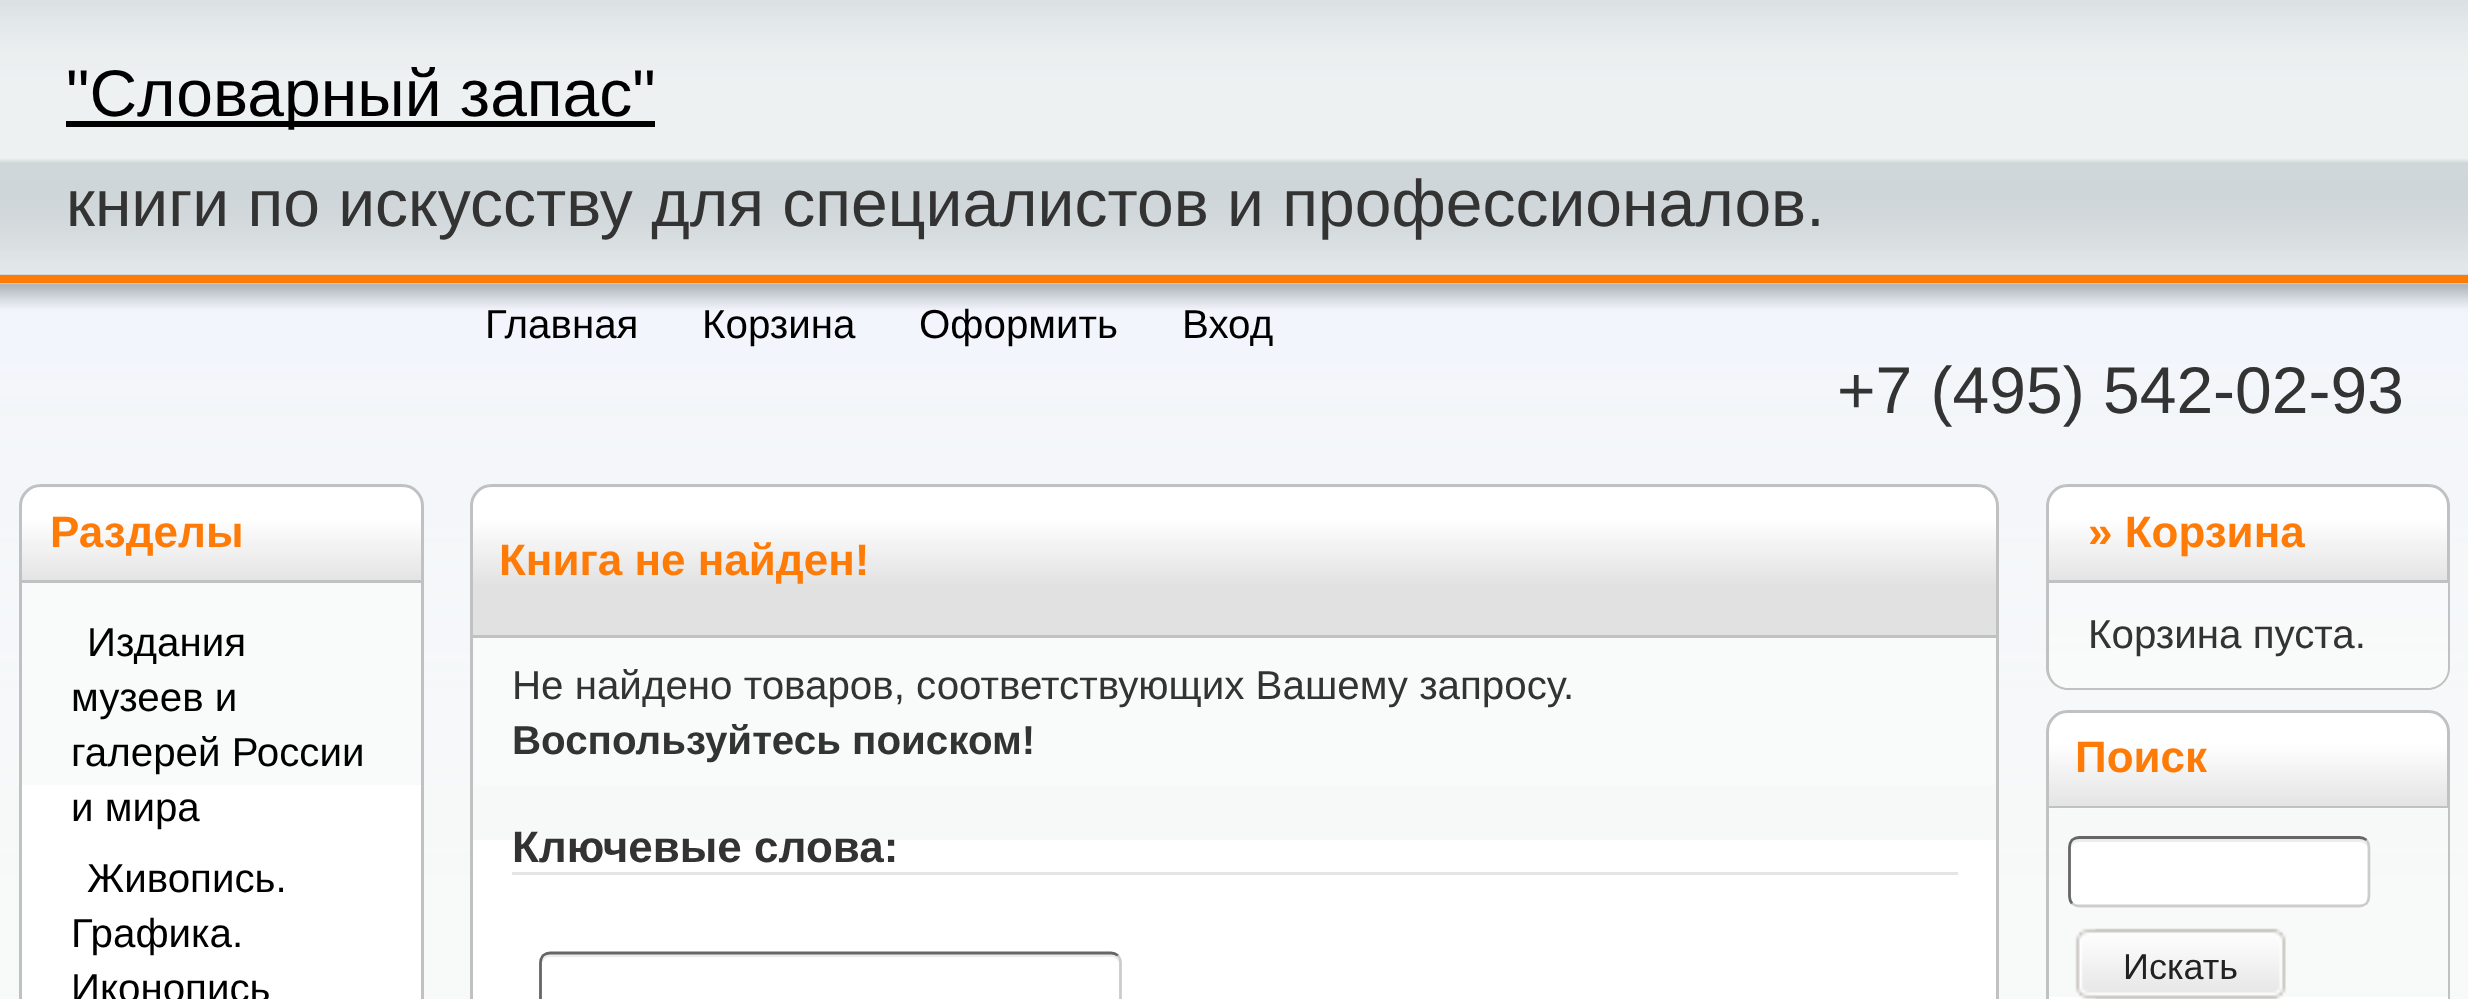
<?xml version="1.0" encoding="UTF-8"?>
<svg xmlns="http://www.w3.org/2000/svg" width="2468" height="999">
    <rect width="100%" height="100%" fill="#FFFFFF"/>
    <image x="0" y="363" width="2468" height="636" href="img_01.png"/>
    <image x="0" y="0" width="2468" height="275" href="img_02.png"/>
    <rect x="66" y="121" width="589" height="6" fill="#000000"/>
    <text x="66" y="116" font-family="Liberation Sans" font-size="66" fill="#000000">"Словарный запас"</text>
    <text x="66" y="226" font-family="Liberation Sans" font-size="66" fill="#333333">книги по искусству для специалистов и профессионалов.</text>
    <text x="1837" y="413" font-family="Liberation Sans" font-size="66" fill="#333333">+7 (495) 542-02-93</text>
    <image x="0" y="283" width="2468" height="80" href="img_03.png"/>
    <rect x="0" y="275" width="2468" height="8" fill="#FF7B08"/>
    <text x="485" y="338" font-family="Liberation Sans" font-size="40.3" fill="#000000">Главная</text>
    <text x="702" y="338" font-family="Liberation Sans" font-size="40.3" fill="#000000">Корзина</text>
    <text x="919" y="338" font-family="Liberation Sans" font-size="40.3" fill="#000000">Оформить</text>
    <text x="1182" y="338" font-family="Liberation Sans" font-size="40.3" fill="#000000">Вход</text>
    <image x="19" y="484" width="405" height="96" href="img_04.png"/>
    <path d="M 41 485.5 H 402 C 413.5 485.5 422.5 494.5 422.5 506 V 581.5 H 20.5 V 506 C 20.5 494.5 29.5 485.5 41 485.5 Z" fill="none" stroke="#C0C1C2" stroke-width="3"/>
    <text x="50" y="547" font-family="Liberation Sans" font-size="44" font-weight="700" fill="#FF7B08">Разделы</text>
    <rect x="22" y="785" width="399" height="214" fill="#FFFFFF"/>
    <rect x="22" y="583" width="399" height="202" fill="#F9FAFA"/>
    <path d="M 19 583 H 424 V 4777 C 424 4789 414 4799 402 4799 H 41 C 29 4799 19 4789 19 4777 Z M 22 583 H 421 V 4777 C 421 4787 412 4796 402 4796 H 41 C 31 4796 22 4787 22 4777 Z" fill="#C0C1C2" fill-rule="evenodd"/>
    <text x="87" y="656" font-family="Liberation Sans" font-size="40.3" fill="#000000">Издания</text>
    <text font-family="Liberation Sans" font-size="40.3" fill="#000000">
        <tspan x="71" y="711">музеев и</tspan>
        <tspan x="71" y="766">галерей России</tspan>
        <tspan x="71" y="821">и мира</tspan>
    </text>
    <text x="87" y="892" font-family="Liberation Sans" font-size="40.3" fill="#000000">Живопись.</text>
    <text font-family="Liberation Sans" font-size="40.3" fill="#000000">
        <tspan x="71" y="947">Графика.</tspan>
        <tspan x="71" y="1002">Иконопись</tspan>
    </text>
    <image x="470" y="484" width="1529" height="151" href="img_05.png"/>
    <path d="M 492 485.5 H 1977 C 1988.5 485.5 1997.5 494.5 1997.5 506 V 636.5 H 471.5 V 506 C 471.5 494.5 480.5 485.5 492 485.5 Z" fill="none" stroke="#C0C1C2" stroke-width="3"/>
    <text x="499" y="575" font-family="Liberation Sans" font-size="44" font-weight="700" fill="#FF7B08">Книга не найден!</text>
    <rect x="473" y="840" width="1523" height="159" fill="#FFFFFF"/>
    <rect x="473" y="638" width="1523" height="147" fill="#F9FAFA"/>
    <path d="M 470 638 H 1999 V 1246 C 1999 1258 1989 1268 1977 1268 H 492 C 480 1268 470 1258 470 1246 Z M 473 638 H 1996 V 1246 C 1996 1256 1988 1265 1977 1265 H 492 C 482 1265 473 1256 473 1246 Z" fill="#C0C1C2" fill-rule="evenodd"/>
    <text x="512" y="699" font-family="Liberation Sans" font-size="40.3" fill="#333333">Не найдено товаров, соответствующих Вашему запросу.</text>
    <text x="512" y="754" font-family="Liberation Sans" font-size="40.3" font-weight="700" fill="#333333">Воспользуйтесь поиском!</text>
    <rect x="512" y="872" width="1446" height="3" fill="#E5E5E5"/>
    <text x="512" y="862" font-family="Liberation Sans" font-size="44" font-weight="700" fill="#333333">Ключевые слова:</text>
    <path d="M 550 957 H 1111 C 1116 957 1119 961 1119 965 C 1119 960 1117 954 1111 954 H 550 C 544 954 542 960 542 965 C 542 961 545 957 550 957 Z" fill="#ECECEC"/>
    <path d="M 1118 955.5 C 1119.5 957.5 1120.5 960 1120.5 962.5 V 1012 C 1120.5 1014.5 1119.5 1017 1118 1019 C 1116 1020.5 1113.5 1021.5 1111 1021.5 H 550 C 547.5 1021.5 545 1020.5 543 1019" fill="none" stroke="#CCCCCC" stroke-width="2.8"/>
    <path d="M 543 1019 C 541.5 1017 540.5 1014.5 540.5 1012 V 962.5 C 540.5 960 541.5 957.5 543 955.5 C 545 954 547.5 953 550 953 H 1111 C 1113.5 953 1116 954 1118 955.5" fill="none" stroke="#666666" stroke-width="2.8"/>
    <image x="2046" y="484" width="404" height="96" href="img_06.png"/>
    <path d="M 2068 485.5 H 2428 C 2439.5 485.5 2448.5 494.5 2448.5 506 V 581.5 H 2047.5 V 506 C 2047.5 494.5 2056.5 485.5 2068 485.5 Z" fill="none" stroke="#C0C1C2" stroke-width="3"/>
    <text x="2088" y="547" font-family="Liberation Sans" font-size="44" font-weight="700" fill="#FF7B08">» Корзина</text>
    <image x="2046" y="583" width="404" height="107" href="img_07.png"/>
    <path d="M 2046 583 H 2450 V 668 C 2450 680 2440 690 2428 690 H 2068 C 2056 690 2046 680 2046 668 Z M 2049 583 H 2448 V 668 C 2448 679 2439 688 2428 688 H 2068 C 2057 688 2049 679 2049 668 Z" fill="#C0C1C2" fill-rule="evenodd"/>
    <text x="2088" y="648" font-family="Liberation Sans" font-size="40.3" fill="#333333">Корзина пуста.</text>
    <image x="2046" y="710" width="404" height="96" href="img_08.png"/>
    <path d="M 2068 711.5 H 2428 C 2439.5 711.5 2448.5 720.5 2448.5 732 V 807.5 H 2047.5 V 732 C 2047.5 720.5 2056.5 711.5 2068 711.5 Z" fill="none" stroke="#C0C1C2" stroke-width="3"/>
    <text x="2075" y="772" font-family="Liberation Sans" font-size="44" font-weight="700" fill="#FF7B08">Поиск</text>
    <rect x="2049" y="997" width="399" height="2" fill="#FFFFFF"/>
    <rect x="2049" y="808" width="399" height="1" fill="#F9FAFA"/>
    <path d="M 2046 808 H 2450 V 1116 C 2450 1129 2440 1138 2428 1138 H 2068 C 2056 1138 2046 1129 2046 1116 Z M 2049 808 H 2448 V 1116 C 2448 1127 2439 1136 2428 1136 H 2068 C 2057 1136 2049 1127 2049 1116 Z" fill="#C0C1C2" fill-rule="evenodd"/>
    <rect x="2068" y="836" width="303" height="72" rx="11" fill="#FFFFFF"/>
    <path d="M 2079 842 H 2360 C 2364 842 2368 845 2368 850 V 847 C 2368 843 2364 839 2360 839 H 2079 C 2075 839 2071 843 2071 847 V 850 C 2071 845 2074 842 2079 842 Z" fill="#ECECEC"/>
    <path d="M 2366.5 840 C 2368 842 2369 844.5 2369 847 V 896.5 C 2369 899 2368 901.5 2366.5 903.5 C 2364.5 905 2362 906 2359.5 906 H 2079 C 2076.5 906 2074 905 2072 903.5" fill="none" stroke="#CCCCCC" stroke-width="2.8"/>
    <path d="M 2072 903.5 C 2070.5 901.5 2069.5 899 2069.5 896.5 V 847 C 2069.5 844.5 2070.5 842 2072 840 C 2074 838.5 2076.5 837.5 2079 837.5 H 2359.5 C 2362 837.5 2364.5 838.5 2366.5 840" fill="none" stroke="#666666" stroke-width="2.8"/>
    <image x="2075" y="928" width="202" height="71" href="img_09.png"/>
    <image x="2095" y="928" width="191" height="71" href="img_10.png"/>
    <text x="2123" y="979" font-family="Liberation Sans" font-size="36" fill="#222222">Искать</text>
</svg>
